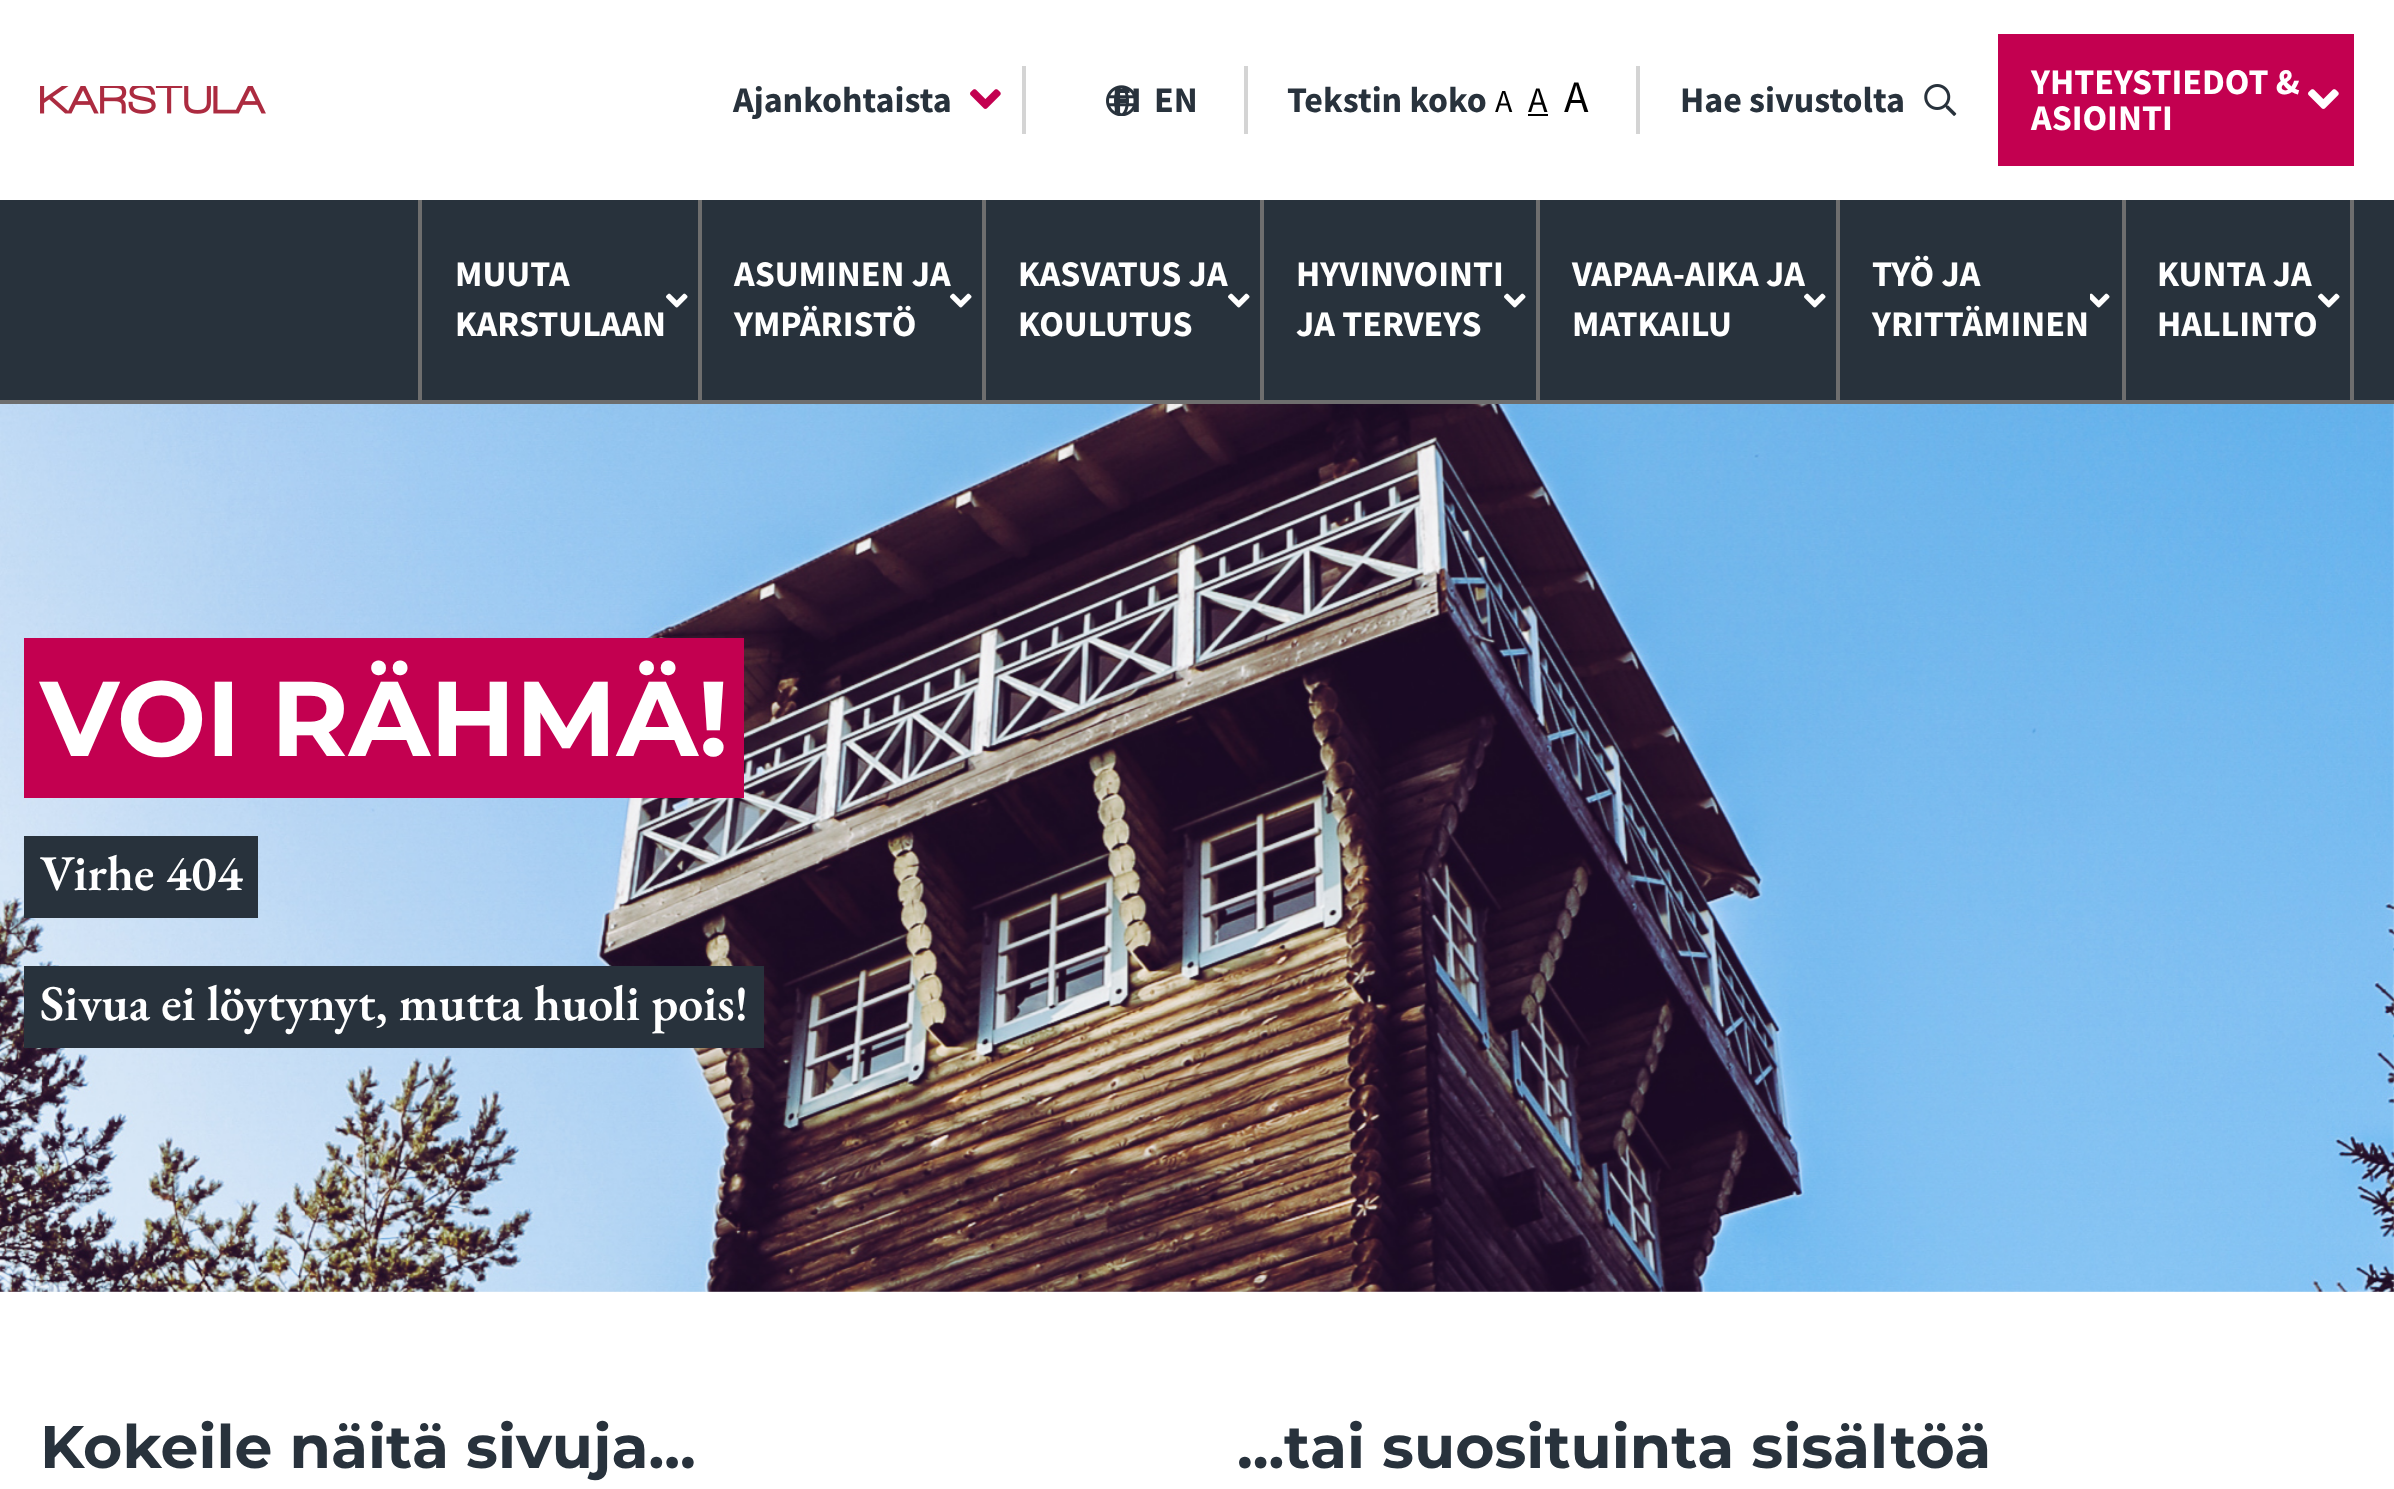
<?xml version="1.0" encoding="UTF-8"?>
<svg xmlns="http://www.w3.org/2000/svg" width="2394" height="1489">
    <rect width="100%" height="100%" fill="#FFFFFF"/>
    <image x="40" y="86" width="226" height="28" href="img_01.png"/>
    <text x="733" y="112" font-family="Source Sans Pro" font-size="36" font-weight="700" fill="#28323C">Ajankohtaista</text>
    <image x="970" y="89" width="31" height="20" href="img_02.png"/>
    <rect x="1022" y="66" width="4" height="68" fill="#D4D4D4"/>
    <text x="1112" y="112" font-family="Source Sans Pro" font-size="36" font-weight="700" fill="#28323C">FI</text>
    <image x="1106" y="85" width="28" height="31" href="img_03.png"/>
    <rect x="1244" y="66" width="4" height="68" fill="#D4D4D4"/>
    <text x="1154" y="112" font-family="Source Sans Pro" font-size="36" font-weight="700" fill="#28323C">EN</text>
    <text x="1287" y="112" font-family="Source Sans Pro" font-size="36" font-weight="700" fill="#28323C">Tekstin koko</text>
    <text x="1495" y="112" font-family="Source Sans Pro" font-size="32" fill="#000000">A</text>
    <text x="1528" y="112" font-family="Source Sans Pro" font-size="36" fill="#000000">A</text>
    <rect x="1528" y="114" width="20" height="2" fill="#000000"/>
    <text x="1564" y="112" font-family="Source Sans Pro" font-size="45" fill="#000000">A</text>
    <rect x="1636" y="66" width="4" height="68" fill="#D4D4D4"/>
    <image x="1924" y="84" width="33" height="32" href="img_04.png"/>
    <text x="1680" y="112" font-family="Source Sans Pro" font-size="36" font-weight="700" fill="#28323C">Hae sivustolta</text>
    <rect x="1998" y="34" width="356" height="132" fill="#C30050"/>
    <text font-family="Source Sans Pro" font-size="36" font-weight="700" fill="#FFFFFF">
        <tspan x="2031" y="94">YHTEYSTIEDOT &amp;</tspan>
        <tspan x="2031" y="130">ASIOINTI</tspan>
    </text>
    <image x="2308" y="89" width="31" height="20" href="img_05.png"/>
    <rect x="0" y="200" width="2394" height="200" fill="#28323C"/>
    <rect x="0" y="400" width="2394" height="4" fill="#6E6E6E"/>
    <rect x="698" y="200" width="4" height="200" fill="#6E6E6E"/>
    <rect x="418" y="200" width="4" height="200" fill="#6E6E6E"/>
    <text font-family="Source Sans Pro" font-size="36" font-weight="700" fill="#FFFFFF">
        <tspan x="455" y="286">MUUTA</tspan>
        <tspan x="455" y="336">KARSTULAAN</tspan>
    </text>
    <image x="666" y="293" width="22" height="15" href="img_06.png"/>
    <rect x="982" y="200" width="4" height="200" fill="#6E6E6E"/>
    <text font-family="Source Sans Pro" font-size="36" font-weight="700" fill="#FFFFFF">
        <tspan x="734" y="286">ASUMINEN JA</tspan>
        <tspan x="734" y="336">YMPÄRISTÖ</tspan>
    </text>
    <image x="950" y="293" width="22" height="15" href="img_06.png"/>
    <rect x="1260" y="200" width="4" height="200" fill="#6E6E6E"/>
    <text font-family="Source Sans Pro" font-size="36" font-weight="700" fill="#FFFFFF">
        <tspan x="1018" y="286">KASVATUS JA</tspan>
        <tspan x="1018" y="336">KOULUTUS</tspan>
    </text>
    <image x="1228" y="293" width="22" height="15" href="img_06.png"/>
    <rect x="1536" y="200" width="4" height="200" fill="#6E6E6E"/>
    <text font-family="Source Sans Pro" font-size="36" font-weight="700" fill="#FFFFFF">
        <tspan x="1296" y="286">HYVINVOINTI</tspan>
        <tspan x="1296" y="336">JA TERVEYS</tspan>
    </text>
    <image x="1504" y="293" width="22" height="15" href="img_06.png"/>
    <rect x="1836" y="200" width="4" height="200" fill="#6E6E6E"/>
    <text font-family="Source Sans Pro" font-size="36" font-weight="700" fill="#FFFFFF">
        <tspan x="1572" y="286">VAPAA-AIKA JA</tspan>
        <tspan x="1572" y="336">MATKAILU</tspan>
    </text>
    <image x="1804" y="293" width="22" height="15" href="img_06.png"/>
    <rect x="2122" y="200" width="4" height="200" fill="#6E6E6E"/>
    <text font-family="Source Sans Pro" font-size="36" font-weight="700" fill="#FFFFFF">
        <tspan x="1872" y="286">TYÖ JA</tspan>
        <tspan x="1872" y="336">YRITTÄMINEN</tspan>
    </text>
    <image x="2090" y="293" width="20" height="15" href="img_07.png"/>
    <rect x="2350" y="200" width="4" height="200" fill="#6E6E6E"/>
    <text font-family="Source Sans Pro" font-size="36" font-weight="700" fill="#FFFFFF">
        <tspan x="2157" y="286">KUNTA JA</tspan>
        <tspan x="2157" y="336">HALLINTO</tspan>
    </text>
    <image x="2318" y="293" width="22" height="15" href="img_06.png"/>
    <rect x="0" y="404" width="2394" height="888" fill="#F2F2F2"/>
    <image x="0" y="404" width="2394" height="888" href="img_08.png"/>
    <rect x="24" y="638" width="16" height="160" fill="#C30050"/>
    <rect x="40" y="638" width="704" height="160" fill="#C30050"/>
    <text x="40" y="756" font-family="Montserrat" font-size="106" font-weight="700" fill="#FFFFFF">VOI RÄHMÄ!</text>
    <rect x="40" y="836" width="218" height="82" fill="#28323C"/>
    <text x="40" y="890" font-family="EB Garamond" font-size="50" font-weight="600" fill="#FFFFFF">Virhe 404</text>
    <rect x="24" y="836" width="16" height="82" fill="#28323C"/>
    <rect x="40" y="966" width="724" height="82" fill="#28323C"/>
    <text x="40" y="1020" font-family="EB Garamond" font-size="50" font-weight="600" fill="#FFFFFF">Sivua ei löytynyt, mutta huoli pois!</text>
    <rect x="24" y="966" width="16" height="82" fill="#28323C"/>
    <text x="40" y="1468" font-family="Montserrat" font-size="60" font-weight="700" fill="#28323C">Kokeile näitä sivuja...</text>
    <text x="1237" y="1468" font-family="Montserrat" font-size="60" font-weight="700" fill="#28323C">...tai suosituinta sisältöä</text>
</svg>
